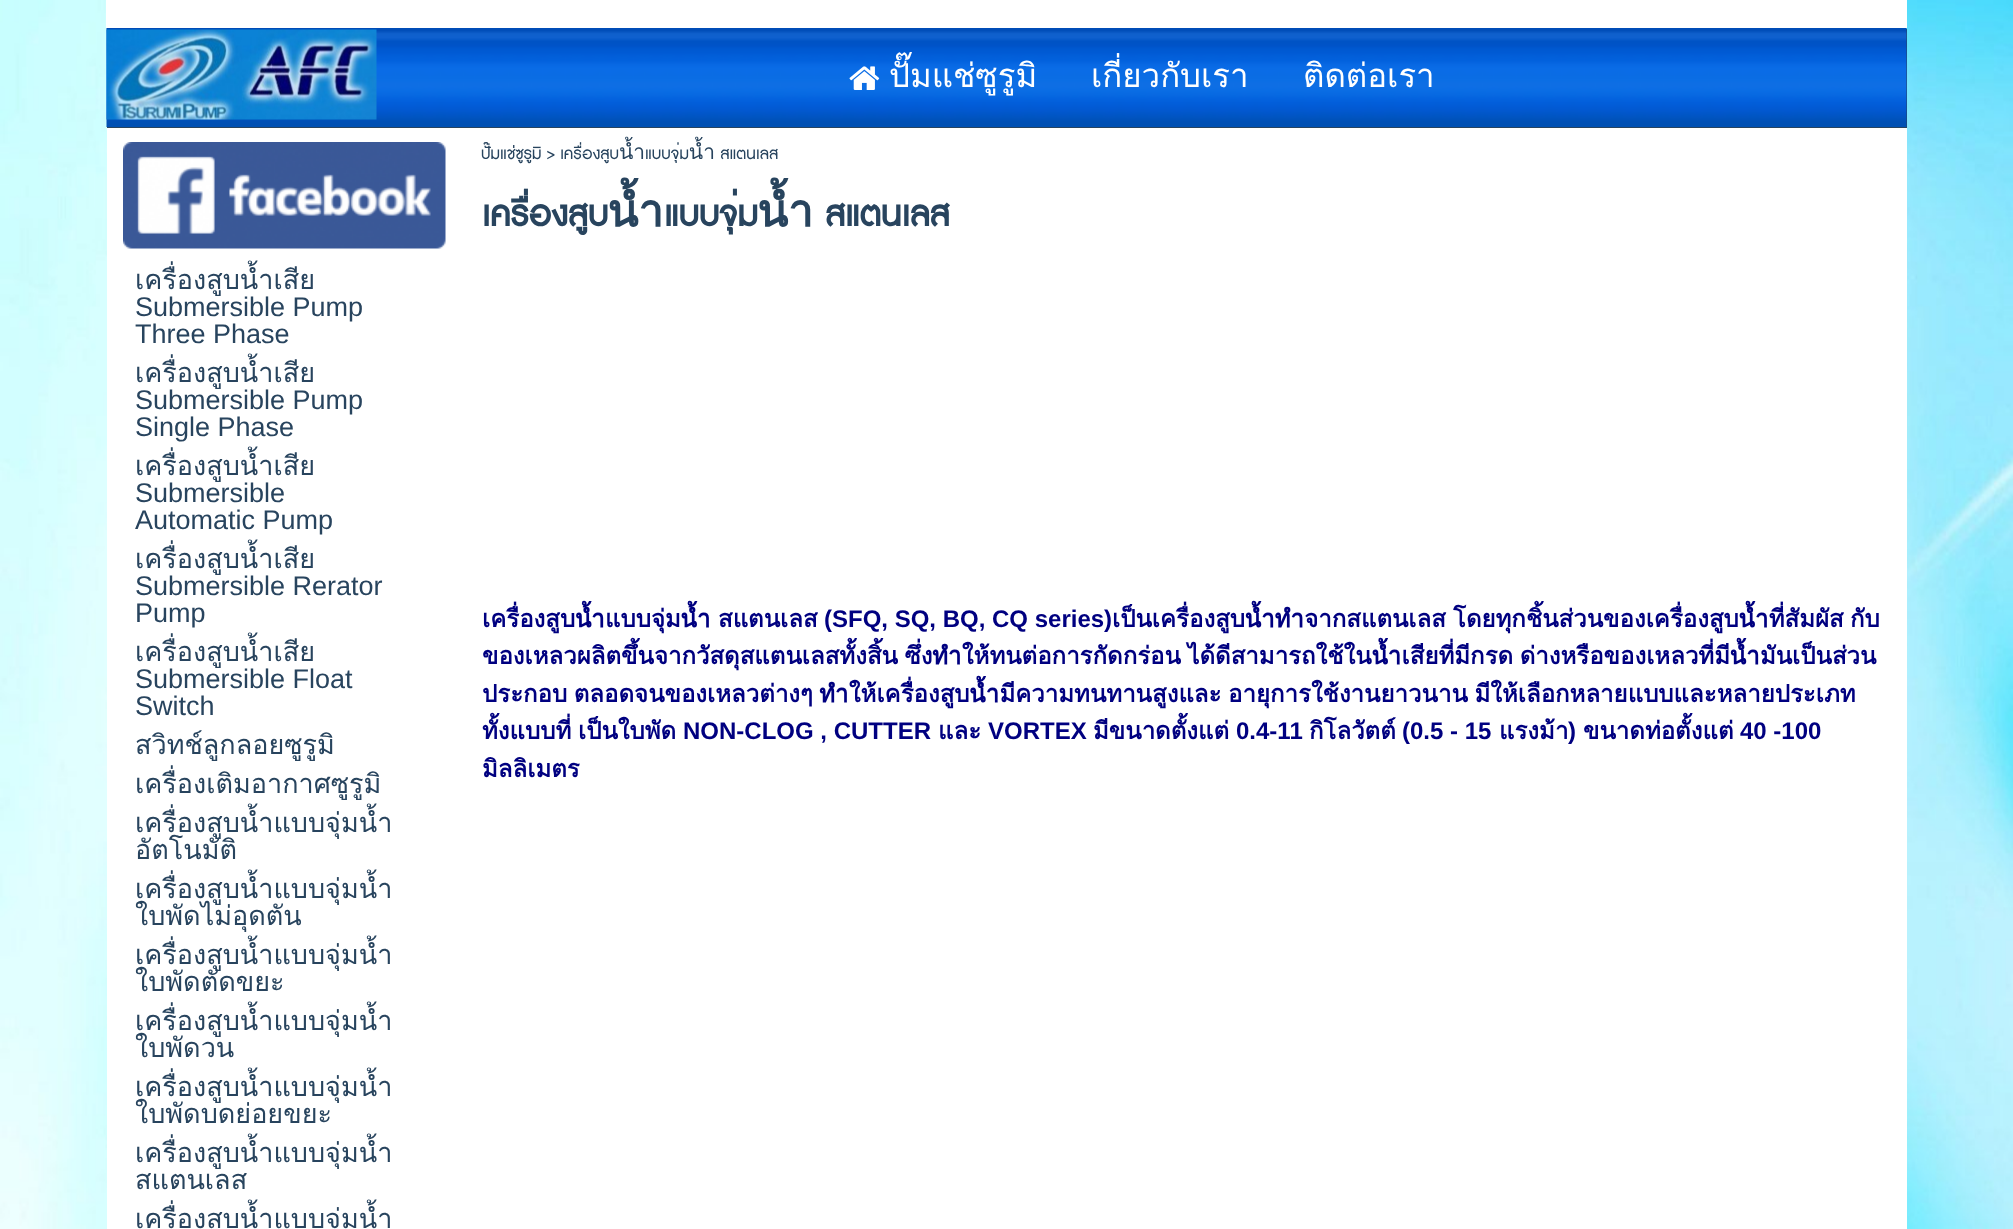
<?xml version="1.0" encoding="UTF-8"?>
<svg xmlns="http://www.w3.org/2000/svg" width="2013" height="1229">
    <rect width="100%" height="100%" fill="#FFFFFF"/>
    <image x="0" y="0" width="2013" height="1229" href="img_01.png"/>
    <rect x="106" y="0" width="1801" height="28" fill="#FFFFFF"/>
    <rect x="107" y="29" width="1800" height="99" fill="#28445E"/>
    <image x="106" y="28" width="1801" height="99" href="img_02.png"/>
    <image x="106" y="29" width="271" height="91" href="img_03.png"/>
    <image x="849" y="66" width="31" height="24" href="img_04.png"/>
    <text x="889" y="87" font-family="Loma" font-size="33" fill="#FFFFFF">ปั๊มแช่ซูรูมิ</text>
    <text x="1091" y="87" font-family="Loma" font-size="33" fill="#FFFFFF">เกี่ยวกับเรา</text>
    <text x="1303" y="87" font-family="Loma" font-size="33" fill="#FFFFFF">ติดต่อเรา</text>
    <rect x="107" y="128" width="1800" height="1101" fill="#FFFFFF"/>
    <text x="481" y="159" font-family="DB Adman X" font-size="21" fill="#28445E">ปั๊มแช่ซูรูมิ &gt; เครื่องสูบน้ำแบบจุ่มน้ำ สแตนเลส</text>
    <text x="482" y="226" font-family="DB Adman X" font-size="45" font-weight="700" fill="#28445E">เครื่องสูบน้ำแบบจุ่มน้ำ สแตนเลส</text>
    <image x="123" y="142" width="323" height="107" href="img_05.png"/>
    <text x="135" y="289" font-family="Loma" font-size="27" fill="#28445E">เครื่องสูบน้ำเสีย</text>
    <text font-family="Liberation Sans" font-size="27" fill="#28445E">
        <tspan x="135" y="316">Submersible Pump</tspan>
        <tspan x="135" y="343">Three Phase</tspan>
    </text>
    <text x="135" y="382" font-family="Loma" font-size="27" fill="#28445E">เครื่องสูบน้ำเสีย</text>
    <text font-family="Liberation Sans" font-size="27" fill="#28445E">
        <tspan x="135" y="409">Submersible Pump</tspan>
        <tspan x="135" y="436">Single Phase</tspan>
    </text>
    <text x="135" y="475" font-family="Loma" font-size="27" fill="#28445E">เครื่องสูบน้ำเสีย</text>
    <text font-family="Liberation Sans" font-size="27" fill="#28445E">
        <tspan x="135" y="502">Submersible</tspan>
        <tspan x="135" y="529">Automatic Pump</tspan>
    </text>
    <text x="135" y="568" font-family="Loma" font-size="27" fill="#28445E">เครื่องสูบน้ำเสีย</text>
    <text font-family="Liberation Sans" font-size="27" fill="#28445E">
        <tspan x="135" y="595">Submersible Rerator</tspan>
        <tspan x="135" y="622">Pump</tspan>
    </text>
    <text x="135" y="661" font-family="Loma" font-size="27" fill="#28445E">เครื่องสูบน้ำเสีย</text>
    <text font-family="Liberation Sans" font-size="27" fill="#28445E">
        <tspan x="135" y="688">Submersible Float</tspan>
        <tspan x="135" y="715">Switch</tspan>
    </text>
    <text font-family="Loma" font-size="27" fill="#28445E">
        <tspan x="135" y="754">สวิทช์ลูกลอยซูรูมิ</tspan>
        <tspan x="135" y="793">เครื่องเติมอากาศซูรูมิ</tspan>
        <tspan x="135" y="832">เครื่องสูบน้ำแบบจุ่มน้ำ</tspan>
        <tspan x="135" y="859">อัตโนมัติ</tspan>
        <tspan x="135" y="898">เครื่องสูบน้ำแบบจุ่มน้ำ</tspan>
        <tspan x="135" y="925">ใบพัดไม่อุดตัน</tspan>
        <tspan x="135" y="964">เครื่องสูบน้ำแบบจุ่มน้ำ</tspan>
        <tspan x="135" y="991">ใบพัดตัดขยะ</tspan>
        <tspan x="135" y="1030">เครื่องสูบน้ำแบบจุ่มน้ำ</tspan>
        <tspan x="135" y="1057">ใบพัดวน</tspan>
        <tspan x="135" y="1096">เครื่องสูบน้ำแบบจุ่มน้ำ</tspan>
        <tspan x="135" y="1123">ใบพัดบดย่อยขยะ</tspan>
        <tspan x="135" y="1162">เครื่องสูบน้ำแบบจุ่มน้ำ</tspan>
        <tspan x="135" y="1189">สแตนเลส</tspan>
        <tspan x="135" y="1228">เครื่องสูบน้ำแบบจุ่มน้ำ</tspan>
    </text>
    <text x="482" y="627" font-family="Loma" font-size="24" font-weight="700" fill="#000080">เครื่องสูบน้ำแบบจุ่มน้ำ</text>
    <text x="718" y="627" font-family="Loma" font-size="24" font-weight="700" fill="#000080">สแตนเลส</text>
    <text x="824" y="627" font-family="Liberation Sans" font-size="24" font-weight="700" fill="#000080">(SFQ, SQ, BQ, CQ series)</text>
    <text x="1112" y="627" font-family="Loma" font-size="24" font-weight="700" fill="#000080">เป็นเครื่องสูบน้ำทำจากสแตนเลส</text>
    <text x="1453" y="627" font-family="Loma" font-size="24" font-weight="700" fill="#000080">โดยทุกชิ้นส่วนของเครื่องสูบน้ำที่สัมผัส</text>
    <text x="1850" y="627" font-family="Loma" font-size="24" font-weight="700" fill="#000080">กับ</text>
    <text font-family="Loma" font-size="24" font-weight="700" fill="#000080">
        <tspan x="482" y="664" word-spacing="-1.5">ของเหลวผลิตขึ้นจากวัสดุสแตนเลสทั้งสิ้น ซึ่งทำให้ทนต่อการกัดกร่อน ได้ดีสามารถใช้ในน้ำเสียที่มีกรด ด่างหรือของเหลวที่มีน้ำมันเป็นส่วน</tspan>
        <tspan x="482" y="702" word-spacing="-1.5">ประกอบ ตลอดจนของเหลวต่างๆ ทำให้เครื่องสูบน้ำมีความทนทานสูงและ อายุการใช้งานยาวนาน มีให้เลือกหลายแบบและหลายประเภท</tspan>
        <tspan x="482" y="739">ทั้งแบบที่</tspan>
    </text>
    <text x="578" y="739" font-family="Loma" font-size="24" font-weight="700" fill="#000080">เป็นใบพัด</text>
    <text x="683" y="739" font-family="Liberation Sans" font-size="24" font-weight="700" fill="#000080">NON-CLOG , CUTTER</text>
    <text x="938" y="739" font-family="Loma" font-size="24" font-weight="700" fill="#000080">และ</text>
    <text x="988" y="739" font-family="Liberation Sans" font-size="24" font-weight="700" fill="#000080">VORTEX</text>
    <text x="1093" y="739" font-family="Loma" font-size="24" font-weight="700" fill="#000080">มีขนาดตั้งแต่</text>
    <text x="1236" y="739" font-family="Liberation Sans" font-size="24" font-weight="700" fill="#000080">0.4-11</text>
    <text x="1309" y="739" font-family="Loma" font-size="24" font-weight="700" fill="#000080">กิโลวัตต์</text>
    <text x="1402" y="739" font-family="Liberation Sans" font-size="24" font-weight="700" fill="#000080">(0.5 - 15</text>
    <text x="1499" y="739" font-family="Loma" font-size="24" font-weight="700" fill="#000080">แรงม้า</text>
    <text x="1568" y="739" font-family="Liberation Sans" font-size="24" font-weight="700" fill="#000080">)</text>
    <text x="1583" y="739" font-family="Loma" font-size="24" font-weight="700" fill="#000080">ขนาดท่อตั้งแต่</text>
    <text x="1740" y="739" font-family="Liberation Sans" font-size="24" font-weight="700" fill="#000080">40 -100</text>
    <text x="482" y="777" font-family="Loma" font-size="24" font-weight="700" fill="#000080">มิลลิเมตร</text>
</svg>
